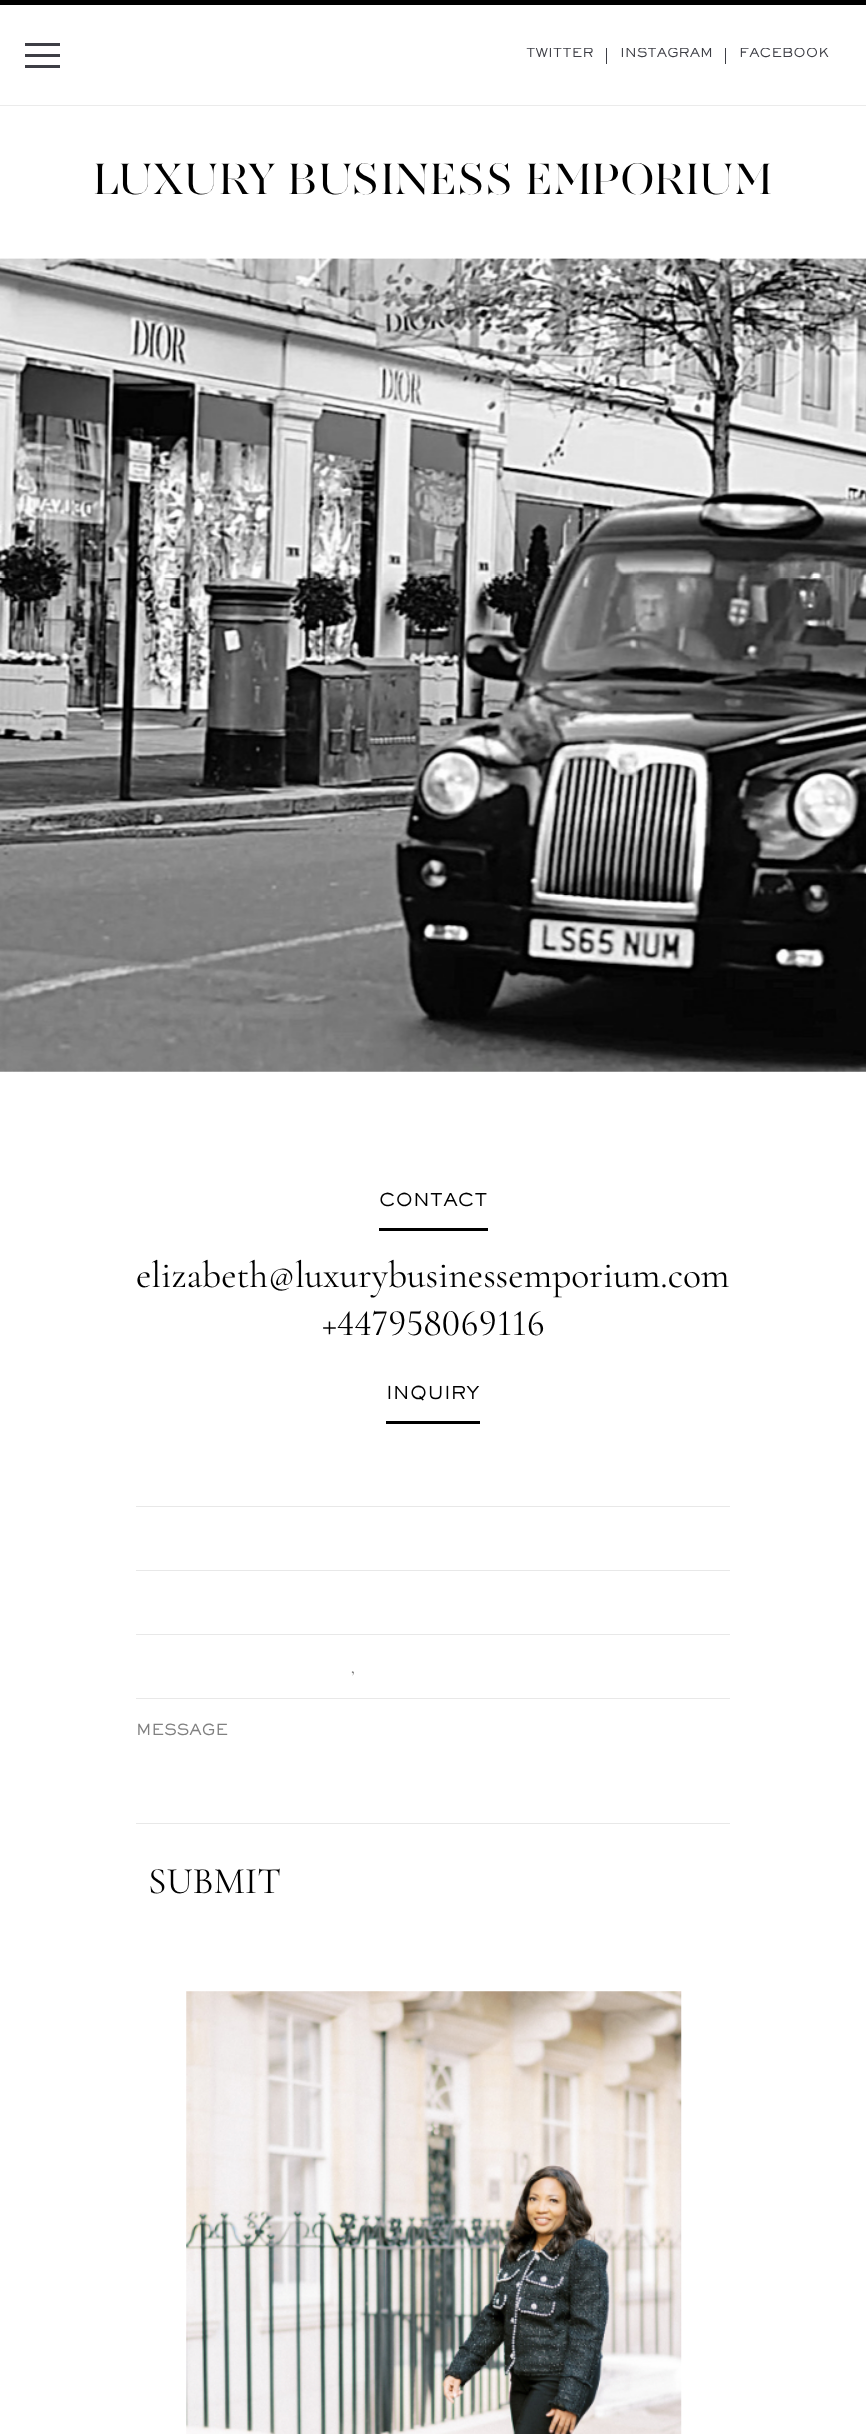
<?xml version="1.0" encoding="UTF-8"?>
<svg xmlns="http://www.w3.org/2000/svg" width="866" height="2434">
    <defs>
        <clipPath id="clip1"><rect x="514" y="48" width="92" height="16"/></clipPath>
        <clipPath id="clip2"><rect x="608" y="48" width="117" height="16"/></clipPath>
        <clipPath id="clip3"><rect x="726" y="48" width="115" height="16"/></clipPath>
    </defs>
    <rect width="100%" height="100%" fill="#FFFFFF"/>
    <rect x="0" y="0" width="866" height="5" fill="#000000"/>
    <rect x="0" y="105" width="866" height="1" fill="#EBEBEB"/>
    <rect x="25" y="54" width="35" height="3" fill="#3D3E45"/>
    <rect x="25" y="43" width="35" height="3" fill="#3D3E45"/>
    <rect x="25" y="65" width="35" height="3" fill="#3D3E45"/>
    <rect x="606" y="48" width="1" height="16" fill="#3D3E45"/>
    <g clip-path="url(#clip1)">
        <text x="526" y="57" font-family="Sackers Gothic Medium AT" font-size="12.5" font-weight="500" fill="#3D3E45">TWITTER</text>
    </g>
    <rect x="725" y="48" width="1" height="16" fill="#3D3E45"/>
    <g clip-path="url(#clip2)">
        <text x="620" y="57" font-family="Sackers Gothic Medium AT" font-size="12.5" font-weight="500" fill="#3D3E45">INSTAGRAM</text>
    </g>
    <g clip-path="url(#clip3)">
        <text x="739" y="57" font-family="Sackers Gothic Medium AT" font-size="12.5" font-weight="500" fill="#3D3E45">FACEBOOK</text>
    </g>
    <text x="93" y="194" font-family="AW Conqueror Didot" font-size="45" font-weight="300" fill="#000000">LUXURY BUSINESS EMPORIUM</text>
    <image x="0" y="258" width="866" height="814" href="img_01.png"/>
    <image x="0" y="259" width="866" height="812" href="img_02.png"/>
    <text x="379" y="1206" font-family="Sackers Gothic Medium AT" font-size="17.5" font-weight="500" fill="#000000">CONTACT</text>
    <rect x="379" y="1228" width="109" height="3" fill="#000000"/>
    <text x="136" y="1287" font-family="Cormorant Garamond" font-size="37.5" fill="#000000">elizabeth@luxurybusinessemporium.com</text>
    <text x="322" y="1335" font-family="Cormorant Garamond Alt" font-size="37.5" fill="#000000">+447958069116</text>
    <text x="386" y="1399" font-family="Sackers Gothic Medium AT" font-size="17.5" font-weight="500" fill="#000000">INQUIRY</text>
    <rect x="386" y="1421" width="94" height="3" fill="#000000"/>
    <rect x="136" y="1506" width="594" height="1" fill="#E8E8E8"/>
    <rect x="136" y="1570" width="594" height="1" fill="#E8E8E8"/>
    <rect x="136" y="1634" width="594" height="1" fill="#E8E8E8"/>
    <rect x="136" y="1698" width="594" height="1" fill="#E8E8E8"/>
    <text x="350" y="1673" font-family="Sackers Gothic Medium AT" font-size="15" font-weight="500" fill="#808080">,</text>
    <rect x="136" y="1823" width="594" height="1" fill="#E8E8E8"/>
    <text x="136" y="1735" font-family="Sackers Gothic Medium AT" font-size="15" font-weight="500" fill="#808080">MESSAGE</text>
    <text x="148" y="1893" font-family="Cormorant Garamond" font-size="37.5" fill="#000000">SUBMIT</text>
    <image x="186" y="1991" width="496" height="443" href="img_03.png"/>
</svg>
